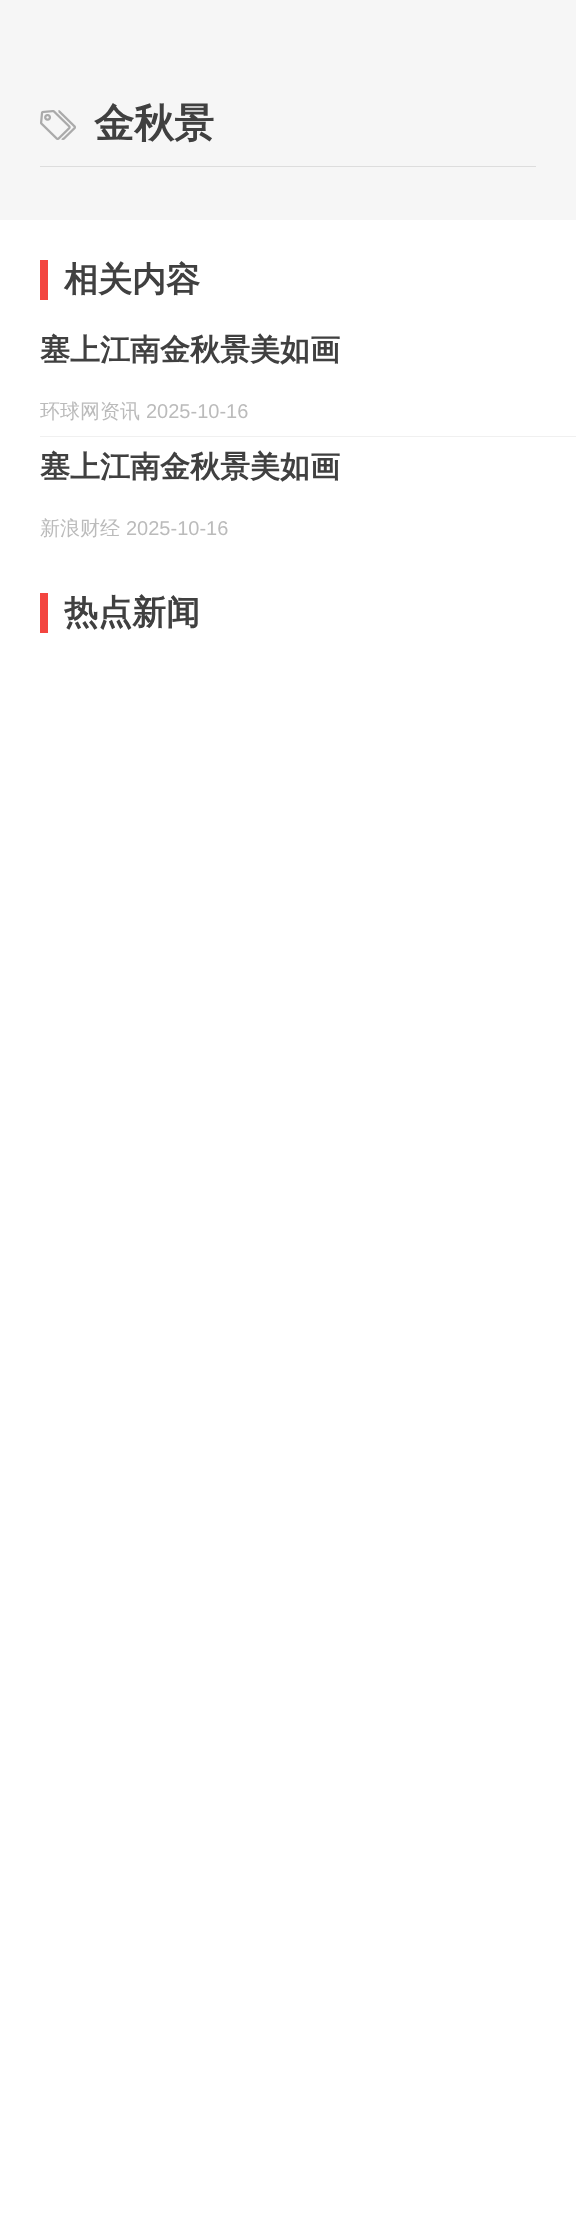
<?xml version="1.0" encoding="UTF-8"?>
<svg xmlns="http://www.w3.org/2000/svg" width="576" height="2218">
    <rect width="100%" height="100%" fill="#FFFFFF"/>
    <rect x="0" y="0" width="576" height="220" fill="#F6F6F6"/>
    <image x="40" y="110" width="36" height="30" href="img_01.png"/>
    <rect x="40" y="166" width="496" height="1" fill="#DDDDDD"/>
    <text x="94" y="137" font-family="WenQuanYi Zen Hei" font-size="40" font-weight="700" fill="#404040">金秋景</text>
    <rect x="40" y="260" width="8" height="40" fill="#F34540"/>
    <text x="64" y="291" font-family="WenQuanYi Zen Hei" font-size="34" font-weight="700" fill="#404040">相关内容</text>
    <rect x="40" y="436" width="536" height="1" fill="#F0F0F0"/>
    <text x="40" y="360" font-family="WenQuanYi Zen Hei" font-size="30" font-weight="700" fill="#404040">塞上江南金秋景美如画</text>
    <text x="40" y="418" font-family="WenQuanYi Zen Hei" font-size="20" font-weight="500" fill="#BBBBBB">环球网资讯</text>
    <text x="146" y="418" font-family="Liberation Sans" font-size="20" fill="#BBBBBB">2025-10-16</text>
    <text x="40" y="477" font-family="WenQuanYi Zen Hei" font-size="30" font-weight="700" fill="#404040">塞上江南金秋景美如画</text>
    <text x="40" y="535" font-family="WenQuanYi Zen Hei" font-size="20" font-weight="500" fill="#BBBBBB">新浪财经</text>
    <text x="126" y="535" font-family="Liberation Sans" font-size="20" fill="#BBBBBB">2025-10-16</text>
    <rect x="40" y="593" width="8" height="40" fill="#F34540"/>
    <text x="64" y="624" font-family="WenQuanYi Zen Hei" font-size="34" font-weight="700" fill="#404040">热点新闻</text>
</svg>
